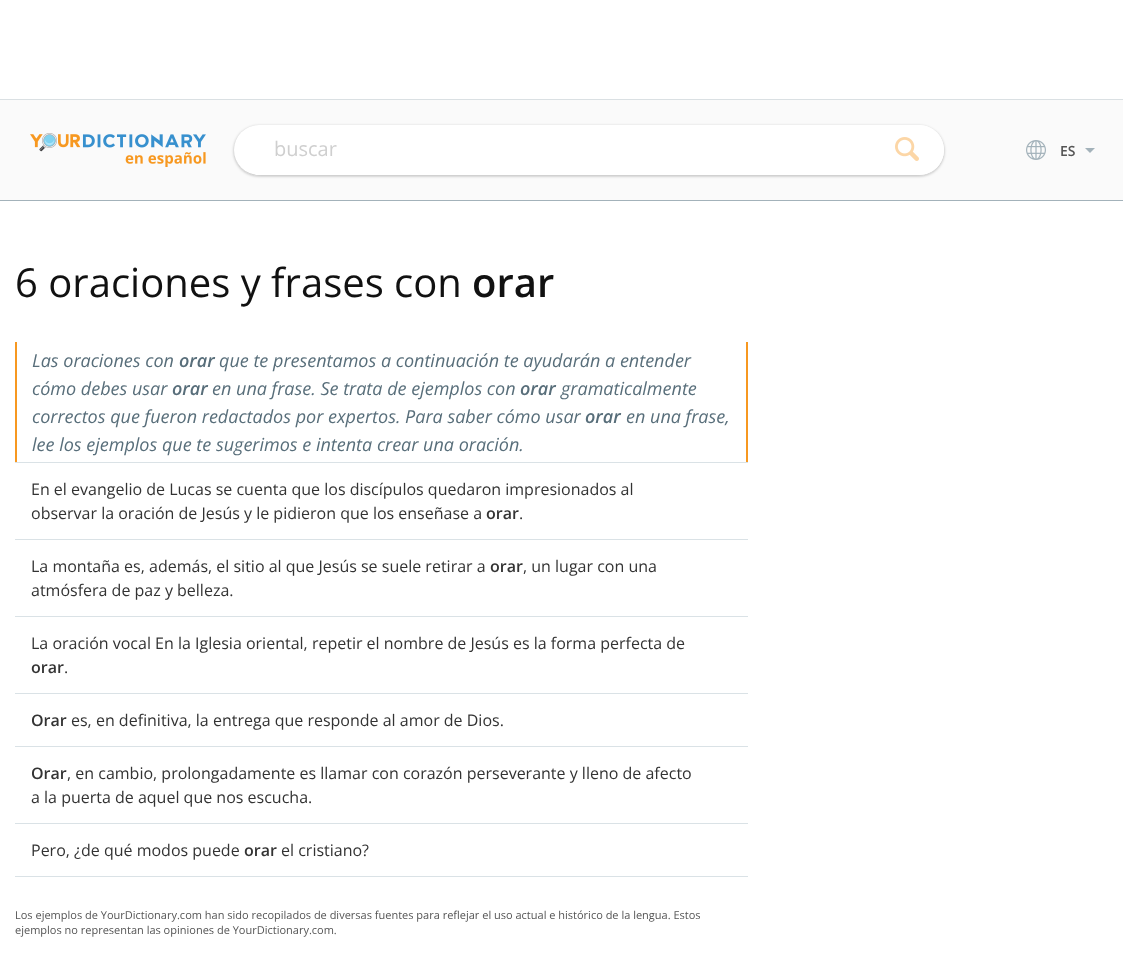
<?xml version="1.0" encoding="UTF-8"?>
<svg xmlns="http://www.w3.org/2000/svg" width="1123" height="978">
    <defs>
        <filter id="blur1" x="-50%" y="-200%" width="200%" height="500%"><feGaussianBlur stdDeviation="1.5"/></filter>
    </defs>
    <rect width="100%" height="100%" fill="#FFFFFF"/>
    <rect x="0" y="99" width="1123" height="1" fill="#DAE0E3"/>
    <rect x="0" y="100" width="1123" height="100" fill="#FAFAFA"/>
    <rect x="0" y="200" width="1123" height="1" fill="#A3B2BA"/>
    <image x="30" y="133" width="176" height="34" href="img_01.png"/>
    <rect x="234" y="126" width="710" height="50" rx="25" fill="#222222" fill-opacity="0.3" filter="url(#blur1)"/>
    <rect x="234" y="125" width="710" height="50" rx="25" fill="#FFFFFF"/>
    <text x="274" y="156" font-family="Open Sans" font-size="20" fill="#CFCFCF">buscar</text>
    <path d="M 869 125 H 919 C 933 125 944 136 944 150 C 944 164 933 175 919 175 H 869 Z" fill="#FFFFFF"/>
    <image x="895" y="137" width="24" height="24" href="img_02.png"/>
    <image x="1026" y="140" width="20" height="20" href="img_03.png"/>
    <text x="1060" y="156" font-family="Open Sans" font-size="14" font-weight="600" fill="#555555">ES</text>
    <path d="M 1085 148 H 1095 L 1090 153 Z" fill="#A3B2BA"/>
    <text x="15" y="297" font-family="Open Sans" font-size="40" fill="#111111">6 oraciones y frases con</text>
    <text x="472" y="297" font-family="Open Sans" font-size="40" font-weight="600" fill="#111111">orar</text>
    <rect x="746" y="342" width="2" height="120" fill="#F79820"/>
    <rect x="15" y="342" width="2" height="120" fill="#F79820"/>
    <text x="32" y="367" font-family="Open Sans" font-size="18" font-style="italic" fill="#586E7A">Las oraciones con</text>
    <text x="179" y="367" font-family="Open Sans" font-size="18" font-weight="600" font-style="italic" fill="#586E7A">orar</text>
    <text x="219" y="367" font-family="Open Sans" font-size="18" font-style="italic" fill="#586E7A">que te presentamos a continuación te ayudarán a entender</text>
    <text x="32" y="395" font-family="Open Sans" font-size="18" font-style="italic" fill="#586E7A">cómo debes usar</text>
    <text x="172" y="395" font-family="Open Sans" font-size="18" font-weight="600" font-style="italic" fill="#586E7A">orar</text>
    <text x="212" y="395" font-family="Open Sans" font-size="18" font-style="italic" fill="#586E7A">en una frase. Se trata de ejemplos con</text>
    <text x="520" y="395" font-family="Open Sans" font-size="18" font-weight="600" font-style="italic" fill="#586E7A">orar</text>
    <text x="561" y="395" font-family="Open Sans" font-size="18" font-style="italic" fill="#586E7A">gramaticalmente</text>
    <text x="32" y="423" font-family="Open Sans" font-size="18" font-style="italic" fill="#586E7A">correctos que fueron redactados por expertos. Para saber cómo usar</text>
    <text x="585" y="423" font-family="Open Sans" font-size="18" font-weight="600" font-style="italic" fill="#586E7A">orar</text>
    <text x="626" y="423" font-family="Open Sans" font-size="18" font-style="italic" fill="#586E7A">en una frase,</text>
    <text x="32" y="451" font-family="Open Sans" font-size="18" font-style="italic" fill="#586E7A">lee los ejemplos que te sugerimos e intenta crear una oración.</text>
    <rect x="15" y="462" width="733" height="1" fill="#DAE2E6"/>
    <rect x="15" y="539" width="733" height="1" fill="#DAE2E6"/>
    <text font-family="Open Sans" font-size="16" fill="#333333">
        <tspan x="31" y="495">En el evangelio de Lucas se cuenta que los discípulos quedaron impresionados al</tspan>
        <tspan x="31" y="519">observar la oración de Jesús y le pidieron que los enseñase a</tspan>
    </text>
    <text x="486" y="519" font-family="Open Sans" font-size="16" font-weight="600" fill="#333333">orar</text>
    <text x="519" y="519" font-family="Open Sans" font-size="16" fill="#333333">.</text>
    <rect x="15" y="616" width="733" height="1" fill="#DAE2E6"/>
    <text x="31" y="572" font-family="Open Sans" font-size="16" fill="#333333">La montaña es, además, el sitio al que Jesús se suele retirar a</text>
    <text x="490" y="572" font-family="Open Sans" font-size="16" font-weight="600" fill="#333333">orar</text>
    <text x="523" y="572" font-family="Open Sans" font-size="16" fill="#333333">, un lugar con una</text>
    <text x="31" y="596" font-family="Open Sans" font-size="16" fill="#333333">atmósfera de paz y belleza.</text>
    <rect x="15" y="693" width="733" height="1" fill="#DAE2E6"/>
    <text x="31" y="649" font-family="Open Sans" font-size="16" fill="#333333">La oración vocal En la Iglesia oriental, repetir el nombre de Jesús es la forma perfecta de</text>
    <text x="31" y="673" font-family="Open Sans" font-size="16" font-weight="600" fill="#333333">orar</text>
    <text x="64" y="673" font-family="Open Sans" font-size="16" fill="#333333">.</text>
    <rect x="15" y="746" width="733" height="1" fill="#DAE2E6"/>
    <text x="31" y="726" font-family="Open Sans" font-size="16" font-weight="600" fill="#333333">Orar</text>
    <text x="71" y="726" font-family="Open Sans" font-size="16" fill="#333333">es, en definitiva, la entrega que responde al amor de Dios.</text>
    <rect x="15" y="823" width="733" height="1" fill="#DAE2E6"/>
    <text x="31" y="779" font-family="Open Sans" font-size="16" font-weight="600" fill="#333333">Orar</text>
    <text x="67" y="779" font-family="Open Sans" font-size="16" fill="#333333">, en cambio, prolongadamente es llamar con corazón perseverante y lleno de afecto</text>
    <text x="31" y="803" font-family="Open Sans" font-size="16" fill="#333333">a la puerta de aquel que nos escucha.</text>
    <rect x="15" y="876" width="733" height="1" fill="#DAE2E6"/>
    <text x="31" y="856" font-family="Open Sans" font-size="16" fill="#333333">Pero, ¿de qué modos puede</text>
    <text x="244" y="856" font-family="Open Sans" font-size="16" font-weight="600" fill="#333333">orar</text>
    <text x="281" y="856" font-family="Open Sans" font-size="16" fill="#333333">el cristiano?</text>
    <text font-family="Open Sans" font-size="11" fill="#555555">
        <tspan x="15" y="919">Los ejemplos de YourDictionary.com han sido recopilados de diversas fuentes para reflejar el uso actual e histórico de la lengua. Estos</tspan>
        <tspan x="15" y="934">ejemplos no representan las opiniones de YourDictionary.com.</tspan>
    </text>
</svg>
